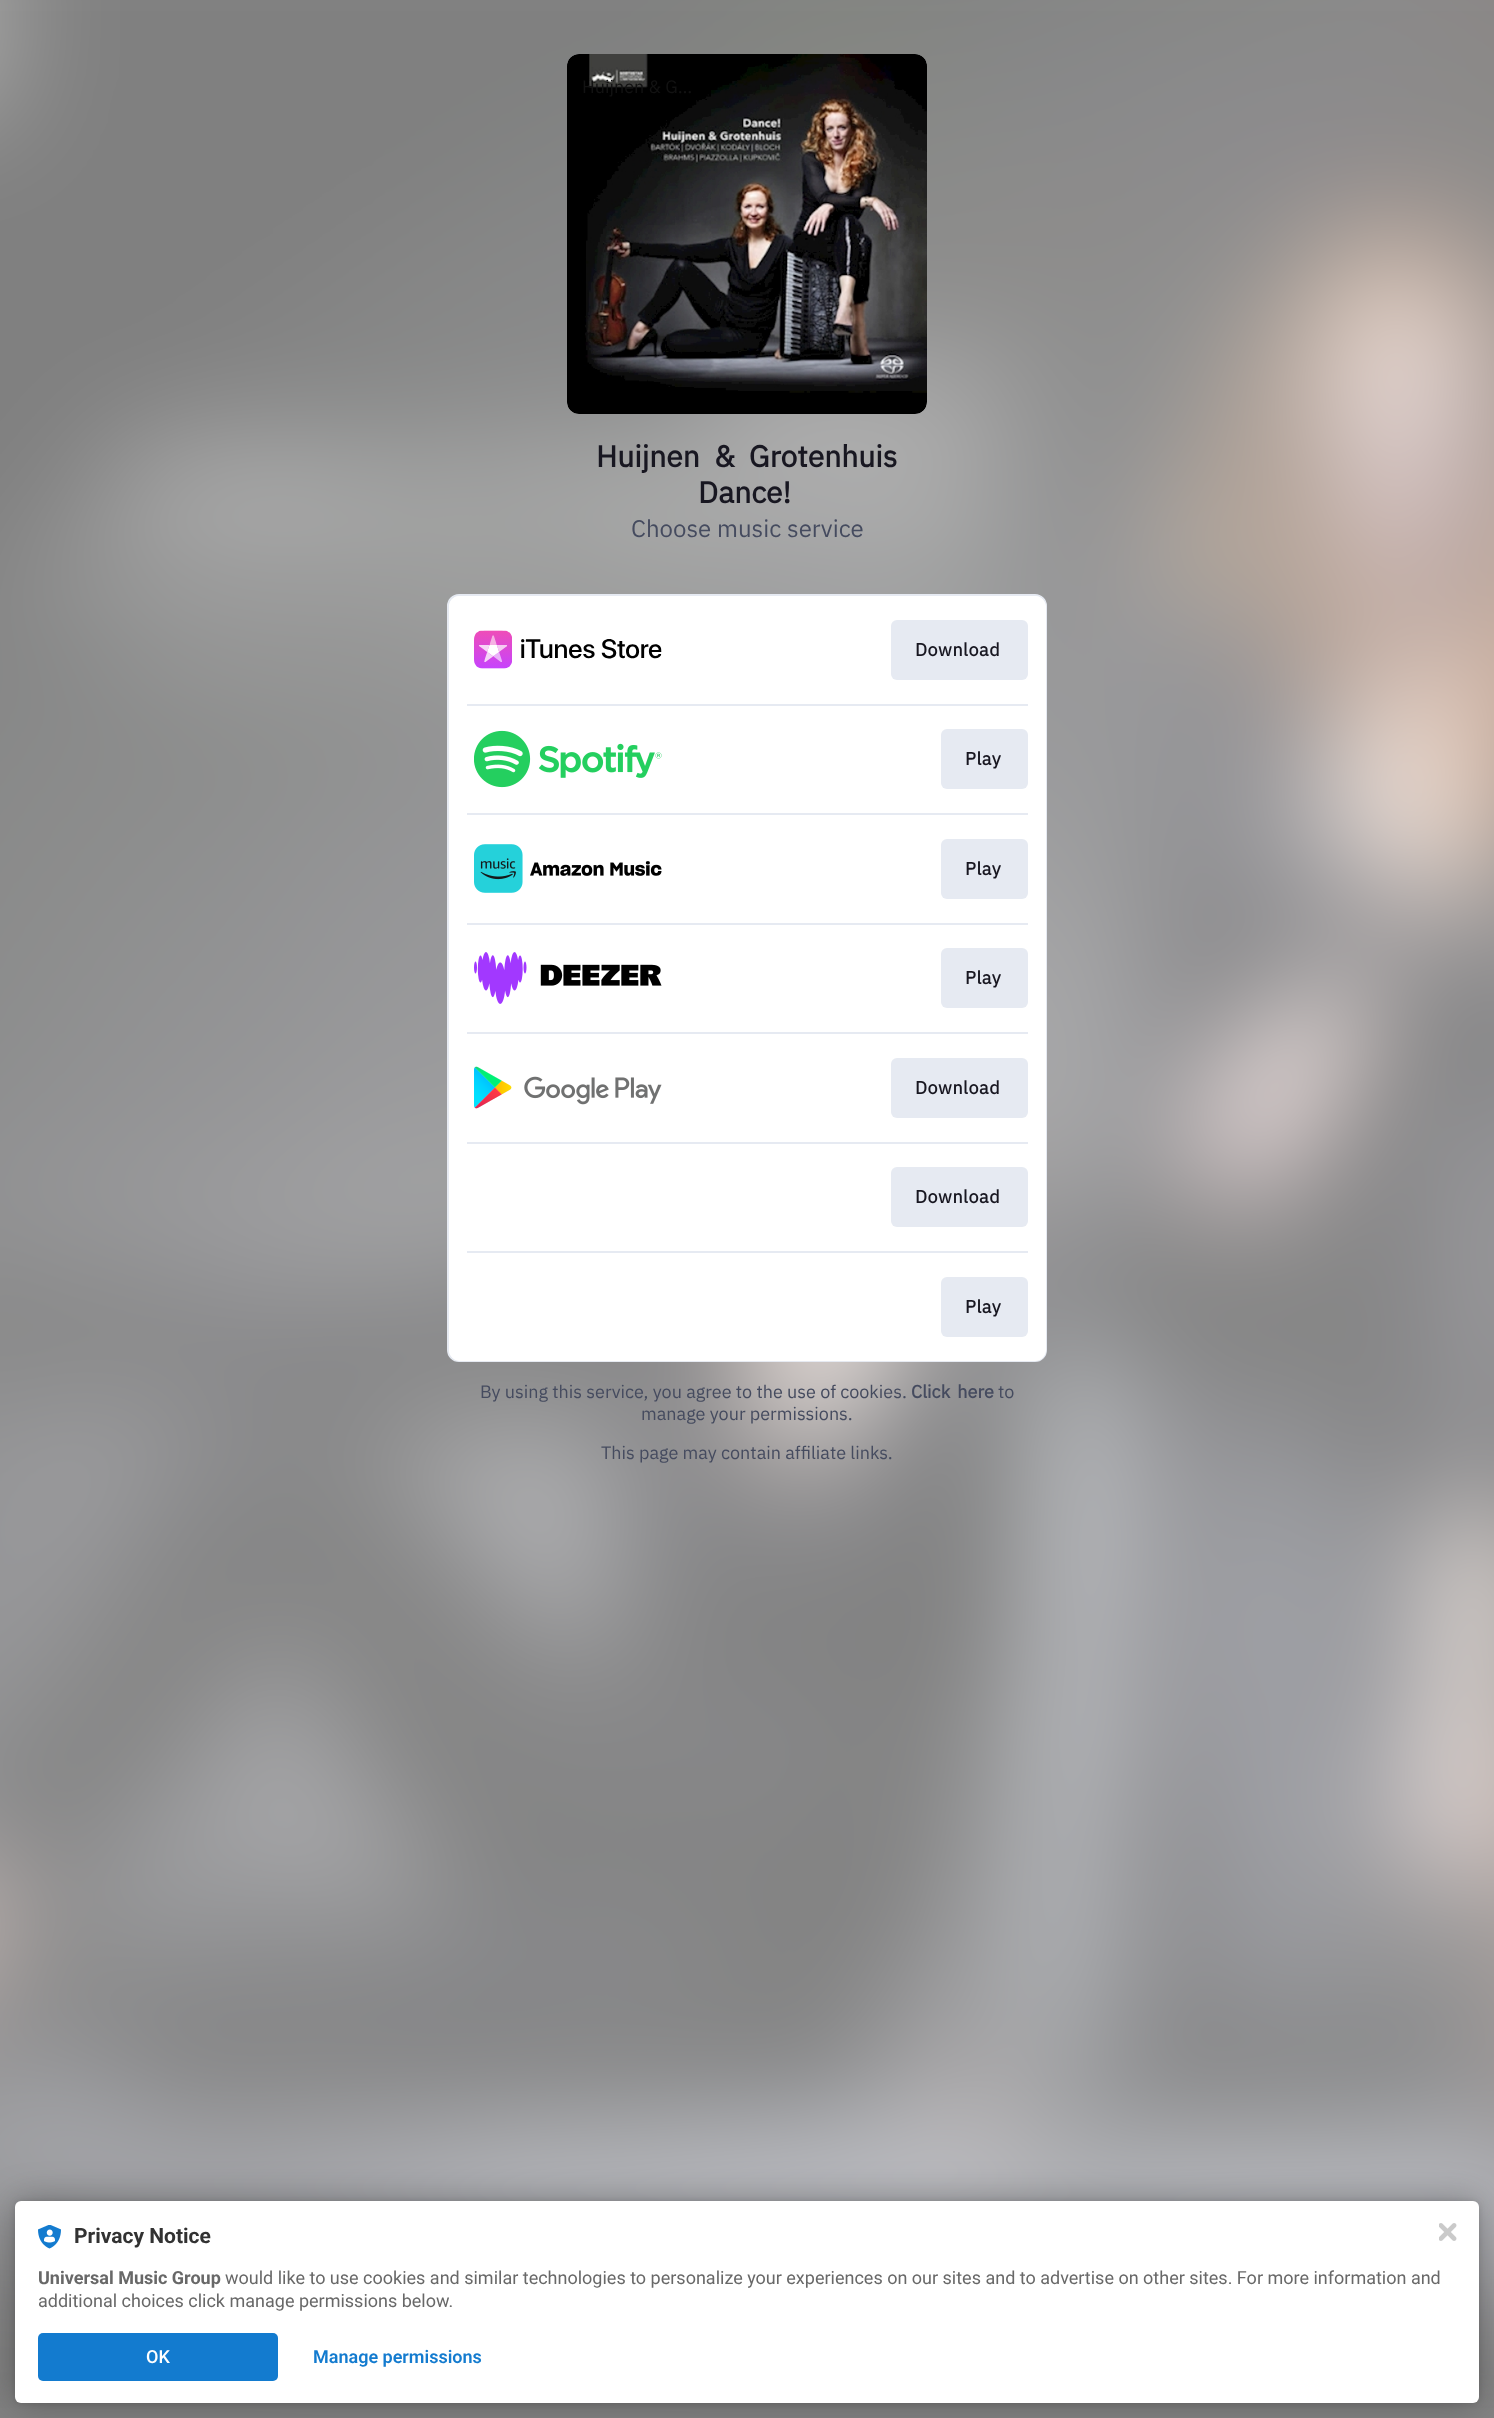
<?xml version="1.0" encoding="UTF-8"?>
<svg xmlns="http://www.w3.org/2000/svg" width="1494" height="2418">
    <defs>
        <filter id="blur1" x="-50%" y="-200%" width="200%" height="500%"><feGaussianBlur stdDeviation="3"/></filter>
        <filter id="blur2" x="-50%" y="-200%" width="200%" height="500%"><feGaussianBlur stdDeviation="18"/></filter>
    </defs>
    <rect width="100%" height="100%" fill="#FFFFFF"/>
    <image x="0" y="0" width="1494" height="2418" href="img_01.png"/>
    <image x="567" y="54" width="360" height="360" href="img_02.png"/>
    <text x="582" y="93" font-family="IBM Plex Sans" font-size="18" fill="#121212">Huijnen &amp; G…</text>
    <text x="596" y="467" word-spacing="7" font-family="IBM Plex Sans" font-size="30" font-weight="700" fill="#181721">Huijnen &amp; Grotenhuis</text>
    <text x="698" y="503" font-family="IBM Plex Sans" font-size="30" font-weight="700" fill="#181721">Dance!</text>
    <text x="631" y="537" font-family="IBM Plex Sans" font-size="24" fill="#454B5F">Choose music service</text>
    <rect x="448" y="595" width="598" height="766" rx="11" fill="#FFFFFF" stroke="#E6EAF2" stroke-width="2"/>
    <rect x="449" y="596" width="597" height="765" rx="11" fill="#FFFFFF"/>
    <image x="474" y="630" width="188" height="39" href="img_03.png"/>
    <rect x="891" y="620" width="137" height="60" rx="6" fill="#E6EAF2"/>
    <text x="915" y="656" font-family="IBM Plex Sans" font-size="18" font-weight="700" letter-spacing="0.5" fill="#181721">Download</text>
    <rect x="467" y="704" width="561" height="2" fill="#E6EAF2"/>
    <image x="474" y="730" width="188" height="58" href="img_04.png"/>
    <rect x="941" y="729" width="87" height="60" rx="6" fill="#E6EAF2"/>
    <text x="965" y="765" font-family="IBM Plex Sans" font-size="18" font-weight="700" letter-spacing="0.5" fill="#181721">Play</text>
    <rect x="467" y="813" width="561" height="2" fill="#E6EAF2"/>
    <image x="474" y="844" width="188" height="49" href="img_05.png"/>
    <rect x="941" y="839" width="87" height="60" rx="6" fill="#E6EAF2"/>
    <text x="965" y="875" font-family="IBM Plex Sans" font-size="18" font-weight="700" letter-spacing="0.5" fill="#181721">Play</text>
    <rect x="467" y="923" width="561" height="2" fill="#E6EAF2"/>
    <image x="474" y="952" width="188" height="52" href="img_06.png"/>
    <rect x="941" y="948" width="87" height="60" rx="6" fill="#E6EAF2"/>
    <text x="965" y="984" font-family="IBM Plex Sans" font-size="18" font-weight="700" letter-spacing="0.5" fill="#181721">Play</text>
    <rect x="467" y="1032" width="561" height="2" fill="#E6EAF2"/>
    <image x="474" y="1066" width="188" height="43" href="img_07.png"/>
    <rect x="891" y="1058" width="137" height="60" rx="6" fill="#E6EAF2"/>
    <text x="915" y="1094" font-family="IBM Plex Sans" font-size="18" font-weight="700" letter-spacing="0.5" fill="#181721">Download</text>
    <rect x="467" y="1142" width="561" height="2" fill="#E6EAF2"/>
    <rect x="891" y="1167" width="137" height="60" rx="6" fill="#E6EAF2"/>
    <text x="915" y="1203" font-family="IBM Plex Sans" font-size="18" font-weight="700" letter-spacing="0.5" fill="#181721">Download</text>
    <rect x="467" y="1251" width="561" height="2" fill="#E6EAF2"/>
    <rect x="941" y="1277" width="87" height="60" rx="6" fill="#E6EAF2"/>
    <text x="965" y="1313" font-family="IBM Plex Sans" font-size="18" font-weight="700" letter-spacing="0.5" fill="#181721">Play</text>
    <text x="480" y="1398" font-family="IBM Plex Sans" font-size="18" fill="#454B5F">By using this service, you agree to the use of cookies.</text>
    <text x="911" y="1398" word-spacing="3" font-family="IBM Plex Sans" font-size="18" font-weight="700" fill="#454B5F">Click here</text>
    <text x="998" y="1398" font-family="IBM Plex Sans" font-size="18" fill="#454B5F">to</text>
    <text x="641" y="1420" font-family="IBM Plex Sans" font-size="18" fill="#454B5F">manage your permissions.</text>
    <text x="601" y="1459" font-family="IBM Plex Sans" font-size="18" fill="#454B5F">This page may contain affiliate links.</text>
    <rect x="15" y="2201" width="1464" height="202" rx="6" fill="#000000" fill-opacity="0.12" filter="url(#blur1)"/>
    <rect x="15" y="2201" width="1464" height="202" rx="6" fill="#000000" fill-opacity="0.3" filter="url(#blur2)"/>
    <rect x="15" y="2201" width="1464" height="202" rx="6" fill="#FFFFFF"/>
    <image x="38" y="2225" width="23" height="24" href="img_08.png"/>
    <text x="74" y="2243" font-family="Roboto" font-size="21" font-weight="700" fill="#323232">Privacy Notice</text>
    <text x="38" y="2284" font-family="Roboto" font-size="18" font-weight="700" fill="#686868">Universal Music Group</text>
    <text x="225" y="2284" font-family="Roboto" font-size="18" fill="#686868">would like to use cookies and similar technologies to personalize your experiences on our sites and to advertise on other sites. For more information and</text>
    <text x="38" y="2307" font-family="Roboto" font-size="18" fill="#686868">additional choices click manage permissions below.</text>
    <rect x="38" y="2333" width="240" height="48" rx="5" fill="#137BCF"/>
    <text x="146" y="2363" font-family="Roboto" font-size="18" font-weight="500" fill="#FFFFFF">OK</text>
    <text x="313" y="2363" font-family="Roboto" font-size="18" font-weight="600" fill="#137BCF">Manage permissions</text>
    <image x="1439" y="2223" width="18" height="18" href="img_09.png"/>
</svg>
